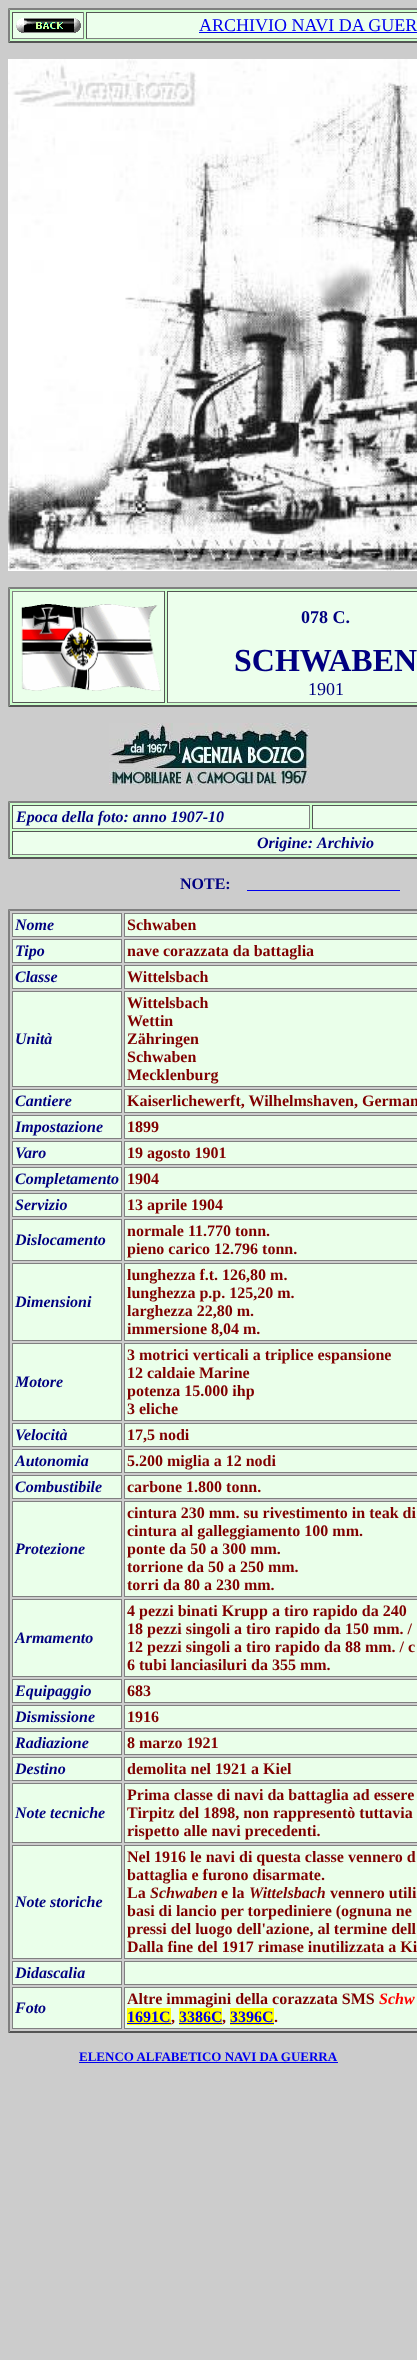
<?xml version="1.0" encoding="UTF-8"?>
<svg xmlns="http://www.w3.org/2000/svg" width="417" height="2360">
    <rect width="100%" height="100%" fill="#CCCCCC"/>
    <rect x="8" y="8" width="409" height="35" fill="#CCFFCC"/>
    <path d="M 8 8 H 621 L 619 10 H 10 Z" fill="#808080"/>
    <path d="M 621 43 H 8 L 10 41 H 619 Z" fill="#555555"/>
    <path d="M 8 43 V 8 L 10 10 V 41 Z" fill="#808080"/>
    <rect x="13" y="13" width="70" height="25" fill="#EAFFEA"/>
    <rect x="12" y="12" width="72" height="1" fill="#555555"/>
    <rect x="83" y="12" width="1" height="27" fill="#808080"/>
    <rect x="12" y="38" width="72" height="1" fill="#808080"/>
    <rect x="12" y="12" width="1" height="27" fill="#555555"/>
    <image x="16" y="18" width="65" height="15" href="img_01.png"/>
    <rect x="87" y="13" width="330" height="25" fill="#ECFFEC"/>
    <rect x="86" y="12" width="331" height="1" fill="#555555"/>
    <rect x="86" y="38" width="331" height="1" fill="#808080"/>
    <rect x="86" y="12" width="1" height="27" fill="#555555"/>
    <text x="199" y="31" font-family="Liberation Serif" font-size="18" fill="#0000EE">ARCHIVIO NAVI DA GUER</text>
    <rect x="199" y="32" width="218" height="1" fill="#0000EE"/>
    <image x="8" y="59" width="409" height="512" href="img_02.png"/>
    <rect x="8" y="587" width="409" height="120" fill="#CCFFCC"/>
    <path d="M 8 587 H 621 L 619 589 H 10 Z" fill="#808080"/>
    <path d="M 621 707 H 8 L 10 705 H 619 Z" fill="#555555"/>
    <path d="M 8 707 V 587 L 10 589 V 705 Z" fill="#808080"/>
    <rect x="13" y="592" width="151" height="110" fill="#EAFFEA"/>
    <rect x="12" y="591" width="153" height="1" fill="#808080"/>
    <rect x="164" y="591" width="1" height="112" fill="#555555"/>
    <rect x="12" y="702" width="153" height="1" fill="#555555"/>
    <rect x="12" y="591" width="1" height="112" fill="#808080"/>
    <image x="21" y="604" width="140" height="87" href="img_03.png"/>
    <rect x="168" y="592" width="249" height="110" fill="#ECFFEC"/>
    <rect x="167" y="591" width="250" height="1" fill="#555555"/>
    <rect x="167" y="702" width="250" height="1" fill="#808080"/>
    <rect x="167" y="591" width="1" height="112" fill="#555555"/>
    <text x="301" y="623" font-family="Liberation Serif" font-size="18" font-weight="700" fill="#000080">078 C.</text>
    <text x="234" y="671" font-family="Liberation Serif" font-size="32" font-weight="700" fill="#000080">SCHWABEN</text>
    <text x="308" y="695" font-family="Liberation Serif" font-size="18" fill="#000080">1901</text>
    <image x="109" y="723" width="200" height="62" href="img_04.png"/>
    <rect x="8" y="801" width="409" height="58" fill="#CCFFCC"/>
    <path d="M 8 801 H 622 L 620 803 H 10 Z" fill="#808080"/>
    <path d="M 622 859 H 8 L 10 857 H 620 Z" fill="#555555"/>
    <path d="M 8 859 V 801 L 10 803 V 857 Z" fill="#808080"/>
    <rect x="13" y="806" width="296" height="22" fill="#ECFFEC"/>
    <rect x="12" y="805" width="298" height="1" fill="#555555"/>
    <rect x="309" y="805" width="1" height="24" fill="#808080"/>
    <rect x="12" y="828" width="298" height="1" fill="#808080"/>
    <rect x="12" y="805" width="1" height="24" fill="#555555"/>
    <text x="16" y="822" font-family="Liberation Serif" font-size="16" font-weight="700" font-style="italic" fill="#000080">Epoca della foto: anno 1907-10</text>
    <rect x="313" y="806" width="104" height="22" fill="#ECFFEC"/>
    <rect x="312" y="805" width="105" height="1" fill="#555555"/>
    <rect x="312" y="828" width="105" height="1" fill="#808080"/>
    <rect x="312" y="805" width="1" height="24" fill="#555555"/>
    <rect x="13" y="832" width="404" height="22" fill="#ECFFEC"/>
    <rect x="12" y="831" width="405" height="1" fill="#555555"/>
    <rect x="12" y="854" width="405" height="1" fill="#808080"/>
    <rect x="12" y="831" width="1" height="24" fill="#555555"/>
    <text x="257" y="848" font-family="Liberation Serif" font-size="16" font-weight="700" font-style="italic" fill="#000080">Origine:</text>
    <text x="317" y="848" font-family="Liberation Serif" font-size="16" font-weight="700" font-style="italic" fill="#000080">Archivio</text>
    <text x="180" y="889" font-family="Liberation Serif" font-size="16" font-weight="700" fill="#000080">NOTE:</text>
    <rect x="247" y="890" width="153" height="1" fill="#0000EE"/>
    <path d="M 8 909 H 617 L 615 911 H 10 Z" fill="#808080"/>
    <path d="M 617 2033 H 8 L 10 2031 H 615 Z" fill="#555555"/>
    <path d="M 8 2033 V 909 L 10 911 V 2031 Z" fill="#808080"/>
    <rect x="12.5" y="913.5" width="109" height="23" fill="#EAFFEA" stroke="#808080"/>
    <text x="15" y="930" font-family="Liberation Serif" font-size="16" font-weight="700" font-style="italic" fill="#000080">Nome</text>
    <rect x="124.5" y="913.5" width="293" height="23" fill="#EAFFEA" stroke="#808080"/>
    <text x="127" y="930" font-family="Liberation Serif" font-size="16" font-weight="700" fill="#800000">Schwaben</text>
    <rect x="12.5" y="939.5" width="109" height="23" fill="#EAFFEA" stroke="#808080"/>
    <text x="15" y="956" font-family="Liberation Serif" font-size="16" font-weight="700" font-style="italic" fill="#000080">Tipo</text>
    <rect x="124.5" y="939.5" width="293" height="23" fill="#EAFFEA" stroke="#808080"/>
    <text x="127" y="956" font-family="Liberation Serif" font-size="16" font-weight="700" fill="#800000">nave corazzata da battaglia</text>
    <rect x="12.5" y="965.5" width="109" height="23" fill="#EAFFEA" stroke="#808080"/>
    <text x="15" y="982" font-family="Liberation Serif" font-size="16" font-weight="700" font-style="italic" fill="#000080">Classe</text>
    <rect x="124.5" y="965.5" width="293" height="23" fill="#EAFFEA" stroke="#808080"/>
    <text x="127" y="982" font-family="Liberation Serif" font-size="16" font-weight="700" fill="#800000">Wittelsbach</text>
    <rect x="12.5" y="991.5" width="109" height="95" fill="#EAFFEA" stroke="#808080"/>
    <text x="15" y="1044" font-family="Liberation Serif" font-size="16" font-weight="700" font-style="italic" fill="#000080">Unità</text>
    <rect x="124.5" y="991.5" width="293" height="95" fill="#EAFFEA" stroke="#808080"/>
    <text font-family="Liberation Serif" font-size="16" font-weight="700" fill="#800000">
        <tspan x="127" y="1008">Wittelsbach</tspan>
        <tspan x="127" y="1026">Wettin</tspan>
        <tspan x="127" y="1044">Zähringen</tspan>
        <tspan x="127" y="1062">Schwaben</tspan>
        <tspan x="127" y="1080">Mecklenburg</tspan>
    </text>
    <rect x="12.5" y="1089.5" width="109" height="23" fill="#EAFFEA" stroke="#808080"/>
    <text x="15" y="1106" font-family="Liberation Serif" font-size="16" font-weight="700" font-style="italic" fill="#000080">Cantiere</text>
    <rect x="124.5" y="1089.5" width="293" height="23" fill="#EAFFEA" stroke="#808080"/>
    <text x="127" y="1106" font-family="Liberation Serif" font-size="16" font-weight="700" fill="#800000">Kaiserlichewerft, Wilhelmshaven, German</text>
    <rect x="12.5" y="1115.5" width="109" height="23" fill="#EAFFEA" stroke="#808080"/>
    <text x="15" y="1132" font-family="Liberation Serif" font-size="16" font-weight="700" font-style="italic" fill="#000080">Impostazione</text>
    <rect x="124.5" y="1115.5" width="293" height="23" fill="#EAFFEA" stroke="#808080"/>
    <text x="127" y="1132" font-family="Liberation Serif" font-size="16" font-weight="700" fill="#800000">1899</text>
    <rect x="12.5" y="1141.5" width="109" height="23" fill="#EAFFEA" stroke="#808080"/>
    <text x="15" y="1158" font-family="Liberation Serif" font-size="16" font-weight="700" font-style="italic" fill="#000080">Varo</text>
    <rect x="124.5" y="1141.5" width="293" height="23" fill="#EAFFEA" stroke="#808080"/>
    <text x="127" y="1158" font-family="Liberation Serif" font-size="16" font-weight="700" fill="#800000">19 agosto 1901</text>
    <rect x="12.5" y="1167.5" width="109" height="23" fill="#EAFFEA" stroke="#808080"/>
    <text x="15" y="1184" font-family="Liberation Serif" font-size="16" font-weight="700" font-style="italic" fill="#000080">Completamento</text>
    <rect x="124.5" y="1167.5" width="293" height="23" fill="#EAFFEA" stroke="#808080"/>
    <text x="127" y="1184" font-family="Liberation Serif" font-size="16" font-weight="700" fill="#800000">1904</text>
    <rect x="12.5" y="1193.5" width="109" height="23" fill="#EAFFEA" stroke="#808080"/>
    <text x="15" y="1210" font-family="Liberation Serif" font-size="16" font-weight="700" font-style="italic" fill="#000080">Servizio</text>
    <rect x="124.5" y="1193.5" width="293" height="23" fill="#EAFFEA" stroke="#808080"/>
    <text x="127" y="1210" font-family="Liberation Serif" font-size="16" font-weight="700" fill="#800000">13 aprile 1904</text>
    <rect x="12.5" y="1219.5" width="109" height="41" fill="#EAFFEA" stroke="#808080"/>
    <text x="15" y="1245" font-family="Liberation Serif" font-size="16" font-weight="700" font-style="italic" fill="#000080">Dislocamento</text>
    <rect x="124.5" y="1219.5" width="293" height="41" fill="#EAFFEA" stroke="#808080"/>
    <text font-family="Liberation Serif" font-size="16" font-weight="700" fill="#800000">
        <tspan x="127" y="1236">normale 11.770 tonn.</tspan>
        <tspan x="127" y="1254">pieno carico 12.796 tonn.</tspan>
    </text>
    <rect x="12.5" y="1263.5" width="109" height="77" fill="#EAFFEA" stroke="#808080"/>
    <text x="15" y="1307" font-family="Liberation Serif" font-size="16" font-weight="700" font-style="italic" fill="#000080">Dimensioni</text>
    <rect x="124.5" y="1263.5" width="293" height="77" fill="#EAFFEA" stroke="#808080"/>
    <text font-family="Liberation Serif" font-size="16" font-weight="700" fill="#800000">
        <tspan x="127" y="1280">lunghezza f.t. 126,80 m.</tspan>
        <tspan x="127" y="1298">lunghezza p.p. 125,20 m.</tspan>
        <tspan x="127" y="1316">larghezza 22,80 m.</tspan>
        <tspan x="127" y="1334">immersione 8,04 m.</tspan>
    </text>
    <rect x="12.5" y="1343.5" width="109" height="77" fill="#EAFFEA" stroke="#808080"/>
    <text x="15" y="1387" font-family="Liberation Serif" font-size="16" font-weight="700" font-style="italic" fill="#000080">Motore</text>
    <rect x="124.5" y="1343.5" width="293" height="77" fill="#EAFFEA" stroke="#808080"/>
    <text font-family="Liberation Serif" font-size="16" font-weight="700" fill="#800000">
        <tspan x="127" y="1360">3 motrici verticali a triplice espansione</tspan>
        <tspan x="127" y="1378">12 caldaie Marine</tspan>
        <tspan x="127" y="1396">potenza 15.000 ihp</tspan>
        <tspan x="127" y="1414">3 eliche</tspan>
    </text>
    <rect x="12.5" y="1423.5" width="109" height="23" fill="#EAFFEA" stroke="#808080"/>
    <text x="15" y="1440" font-family="Liberation Serif" font-size="16" font-weight="700" font-style="italic" fill="#000080">Velocità</text>
    <rect x="124.5" y="1423.5" width="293" height="23" fill="#EAFFEA" stroke="#808080"/>
    <text x="127" y="1440" font-family="Liberation Serif" font-size="16" font-weight="700" fill="#800000">17,5 nodi</text>
    <rect x="12.5" y="1449.5" width="109" height="23" fill="#EAFFEA" stroke="#808080"/>
    <text x="15" y="1466" font-family="Liberation Serif" font-size="16" font-weight="700" font-style="italic" fill="#000080">Autonomia</text>
    <rect x="124.5" y="1449.5" width="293" height="23" fill="#EAFFEA" stroke="#808080"/>
    <text x="127" y="1466" font-family="Liberation Serif" font-size="16" font-weight="700" fill="#800000">5.200 miglia a 12 nodi</text>
    <rect x="12.5" y="1475.5" width="109" height="23" fill="#EAFFEA" stroke="#808080"/>
    <text x="15" y="1492" font-family="Liberation Serif" font-size="16" font-weight="700" font-style="italic" fill="#000080">Combustibile</text>
    <rect x="124.5" y="1475.5" width="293" height="23" fill="#EAFFEA" stroke="#808080"/>
    <text x="127" y="1492" font-family="Liberation Serif" font-size="16" font-weight="700" fill="#800000">carbone 1.800 tonn.</text>
    <rect x="12.5" y="1501.5" width="109" height="95" fill="#EAFFEA" stroke="#808080"/>
    <text x="15" y="1554" font-family="Liberation Serif" font-size="16" font-weight="700" font-style="italic" fill="#000080">Protezione</text>
    <rect x="124.5" y="1501.5" width="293" height="95" fill="#EAFFEA" stroke="#808080"/>
    <text font-family="Liberation Serif" font-size="16" font-weight="700" fill="#800000">
        <tspan x="127" y="1518">cintura 230 mm. su rivestimento in teak di</tspan>
        <tspan x="127" y="1536">cintura al galleggiamento 100 mm.</tspan>
        <tspan x="127" y="1554">ponte da 50 a 300 mm.</tspan>
        <tspan x="127" y="1572">torrione da 50 a 250 mm.</tspan>
        <tspan x="127" y="1590">torri da 80 a 230 mm.</tspan>
    </text>
    <rect x="12.5" y="1599.5" width="109" height="77" fill="#EAFFEA" stroke="#808080"/>
    <text x="15" y="1643" font-family="Liberation Serif" font-size="16" font-weight="700" font-style="italic" fill="#000080">Armamento</text>
    <rect x="124.5" y="1599.5" width="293" height="77" fill="#EAFFEA" stroke="#808080"/>
    <text font-family="Liberation Serif" font-size="16" font-weight="700" fill="#800000">
        <tspan x="127" y="1616">4 pezzi binati Krupp a tiro rapido da 240</tspan>
        <tspan x="127" y="1634">18 pezzi singoli a tiro rapido da 150 mm. /</tspan>
        <tspan x="127" y="1652">12 pezzi singoli a tiro rapido da 88 mm. / c</tspan>
        <tspan x="127" y="1670">6 tubi lanciasiluri da 355 mm.</tspan>
    </text>
    <rect x="12.5" y="1679.5" width="109" height="23" fill="#EAFFEA" stroke="#808080"/>
    <text x="15" y="1696" font-family="Liberation Serif" font-size="16" font-weight="700" font-style="italic" fill="#000080">Equipaggio</text>
    <rect x="124.5" y="1679.5" width="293" height="23" fill="#EAFFEA" stroke="#808080"/>
    <text x="127" y="1696" font-family="Liberation Serif" font-size="16" font-weight="700" fill="#800000">683</text>
    <rect x="12.5" y="1705.5" width="109" height="23" fill="#EAFFEA" stroke="#808080"/>
    <text x="15" y="1722" font-family="Liberation Serif" font-size="16" font-weight="700" font-style="italic" fill="#000080">Dismissione</text>
    <rect x="124.5" y="1705.5" width="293" height="23" fill="#EAFFEA" stroke="#808080"/>
    <text x="127" y="1722" font-family="Liberation Serif" font-size="16" font-weight="700" fill="#800000">1916</text>
    <rect x="12.5" y="1731.5" width="109" height="23" fill="#EAFFEA" stroke="#808080"/>
    <text x="15" y="1748" font-family="Liberation Serif" font-size="16" font-weight="700" font-style="italic" fill="#000080">Radiazione</text>
    <rect x="124.5" y="1731.5" width="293" height="23" fill="#EAFFEA" stroke="#808080"/>
    <text x="127" y="1748" font-family="Liberation Serif" font-size="16" font-weight="700" fill="#800000">8 marzo 1921</text>
    <rect x="12.5" y="1757.5" width="109" height="23" fill="#EAFFEA" stroke="#808080"/>
    <text x="15" y="1774" font-family="Liberation Serif" font-size="16" font-weight="700" font-style="italic" fill="#000080">Destino</text>
    <rect x="124.5" y="1757.5" width="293" height="23" fill="#EAFFEA" stroke="#808080"/>
    <text x="127" y="1774" font-family="Liberation Serif" font-size="16" font-weight="700" fill="#800000">demolita nel 1921 a Kiel</text>
    <rect x="12.5" y="1783.5" width="109" height="59" fill="#EAFFEA" stroke="#808080"/>
    <text x="15" y="1818" font-family="Liberation Serif" font-size="16" font-weight="700" font-style="italic" fill="#000080">Note tecniche</text>
    <rect x="124.5" y="1783.5" width="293" height="59" fill="#EAFFEA" stroke="#808080"/>
    <text font-family="Liberation Serif" font-size="16" font-weight="700" fill="#800000">
        <tspan x="127" y="1800">Prima classe di navi da battaglia ad essere</tspan>
        <tspan x="127" y="1818">Tirpitz del 1898, non rappresentò tuttavia</tspan>
        <tspan x="127" y="1836">rispetto alle navi precedenti.</tspan>
    </text>
    <rect x="12.5" y="1845.5" width="109" height="113" fill="#EAFFEA" stroke="#808080"/>
    <text x="15" y="1907" font-family="Liberation Serif" font-size="16" font-weight="700" font-style="italic" fill="#000080">Note storiche</text>
    <rect x="124.5" y="1845.5" width="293" height="113" fill="#EAFFEA" stroke="#808080"/>
    <text font-family="Liberation Serif" font-size="16" font-weight="700" fill="#800000">
        <tspan x="127" y="1862">Nel 1916 le navi di questa classe vennero d</tspan>
        <tspan x="127" y="1880">battaglia e furono disarmate.</tspan>
        <tspan x="127" y="1898">La</tspan>
    </text>
    <text x="150" y="1898" font-family="Liberation Serif" font-size="16" font-weight="700" font-style="italic" fill="#800000">Schwaben</text>
    <text x="221" y="1898" font-family="Liberation Serif" font-size="16" font-weight="700" fill="#800000">e la</text>
    <text x="249" y="1898" font-family="Liberation Serif" font-size="16" font-weight="700" font-style="italic" fill="#800000">Wittelsbach</text>
    <text x="330" y="1898" font-family="Liberation Serif" font-size="16" font-weight="700" fill="#800000">vennero utili</text>
    <text font-family="Liberation Serif" font-size="16" font-weight="700" fill="#800000">
        <tspan x="127" y="1916">basi di lancio per torpediniere (ognuna ne</tspan>
        <tspan x="127" y="1934">pressi del luogo dell'azione, al termine dell</tspan>
        <tspan x="127" y="1952">Dalla fine del 1917 rimase inutilizzata a Ki</tspan>
    </text>
    <rect x="12.5" y="1961.5" width="109" height="23" fill="#EAFFEA" stroke="#808080"/>
    <text x="15" y="1978" font-family="Liberation Serif" font-size="16" font-weight="700" font-style="italic" fill="#000080">Didascalia</text>
    <rect x="124.5" y="1961.5" width="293" height="23" fill="#EAFFEA" stroke="#808080"/>
    <rect x="12.5" y="1987.5" width="109" height="41" fill="#EAFFEA" stroke="#808080"/>
    <text x="15" y="2013" font-family="Liberation Serif" font-size="16" font-weight="700" font-style="italic" fill="#000080">Foto</text>
    <rect x="124.5" y="1987.5" width="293" height="41" fill="#EAFFEA" stroke="#808080"/>
    <text x="127" y="2004" font-family="Liberation Serif" font-size="16" font-weight="700" fill="#800000">Altre immagini della corazzata SMS</text>
    <text x="379" y="2004" font-family="Liberation Serif" font-size="16" font-weight="700" font-style="italic" fill="#FF0000">Schw</text>
    <rect x="127" y="2008" width="44" height="17" fill="#FFFF00"/>
    <text x="127" y="2022" font-family="Liberation Serif" font-size="16" font-weight="700" fill="#0000EE">1691C</text>
    <rect x="127" y="2023" width="44" height="1" fill="#0000EE"/>
    <text x="171" y="2022" font-family="Liberation Serif" font-size="16" font-weight="700" fill="#800000">,</text>
    <rect x="179" y="2008" width="43" height="17" fill="#FFFF00"/>
    <text x="179" y="2022" font-family="Liberation Serif" font-size="16" font-weight="700" fill="#0000EE">3386C</text>
    <rect x="179" y="2023" width="43" height="1" fill="#0000EE"/>
    <text x="222" y="2022" font-family="Liberation Serif" font-size="16" font-weight="700" fill="#800000">,</text>
    <rect x="230" y="2008" width="44" height="17" fill="#FFFF00"/>
    <text x="230" y="2022" font-family="Liberation Serif" font-size="16" font-weight="700" fill="#0000EE">3396C</text>
    <rect x="230" y="2023" width="44" height="1" fill="#0000EE"/>
    <text x="274" y="2022" font-family="Liberation Serif" font-size="16" font-weight="700" fill="#800000">.</text>
    <text x="79" y="2061" font-family="Liberation Serif" font-size="13" font-weight="700" fill="#0000EE">ELENCO ALFABETICO NAVI DA GUERRA</text>
    <rect x="79" y="2062" width="259" height="1" fill="#0000EE"/>
</svg>
